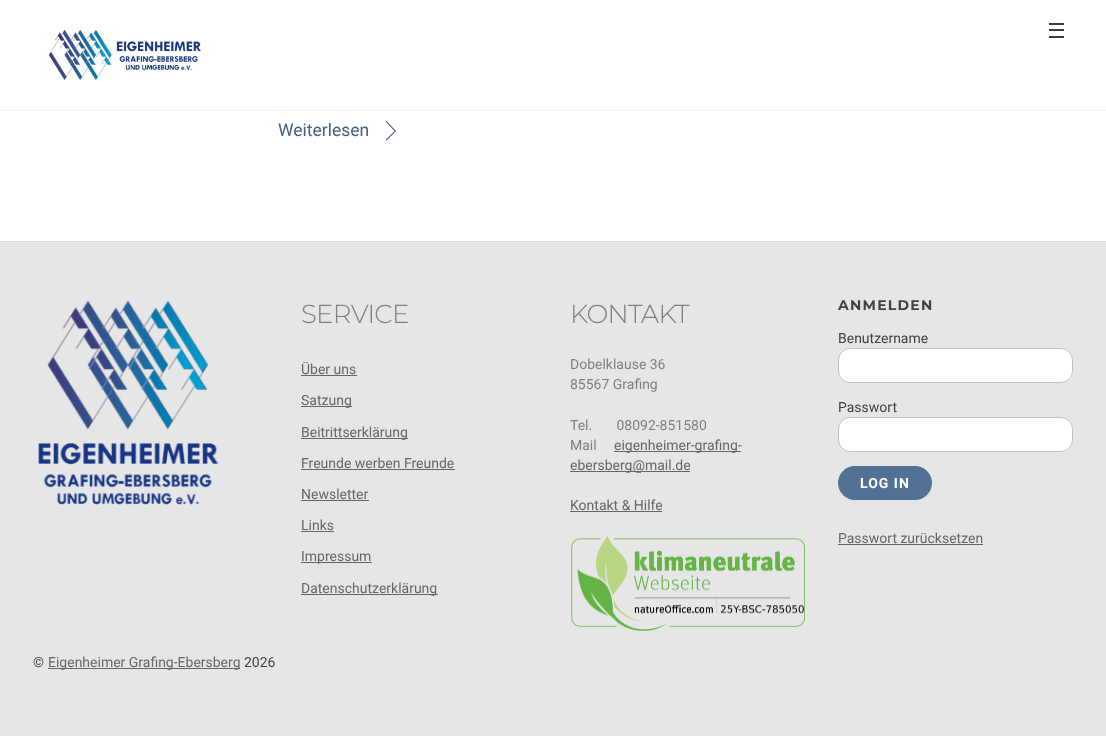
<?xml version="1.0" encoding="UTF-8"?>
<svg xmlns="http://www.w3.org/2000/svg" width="1106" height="736">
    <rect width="100%" height="100%" fill="#FFFFFF"/>
    <rect x="0" y="110" width="1106" height="1" fill="#F2F2F2"/>
    <image x="48" y="29" width="154" height="51" href="img_01.png"/>
    <rect x="1049" y="36" width="15" height="2" fill="#3B3B3B"/>
    <rect x="1049" y="23" width="15" height="2" fill="#3B3B3B"/>
    <rect x="1049" y="29" width="15" height="2" fill="#3B3B3B"/>
    <text x="278" y="136" font-family="Roboto" font-size="17.5" fill="#455E80">Weiterlesen</text>
    <path d="M 386 120.5 L 396 131 H 394.5 L 386 122 Z M 396 131 L 386 141 V 139.5 L 394.5 131 Z" fill="#455E80"/>
    <rect x="0" y="242" width="1106" height="494" fill="#E6E6E6"/>
    <rect x="0" y="241" width="1106" height="1" fill="#DBDBDB"/>
    <image x="38" y="300" width="181" height="205" href="img_02.png"/>
    <text x="301" y="323" font-family="Montserrat" font-size="26" font-weight="300" letter-spacing="-0.75" fill="#808080">SERVICE</text>
    <text x="301" y="374" font-family="Roboto" font-size="14" fill="#666666">Über uns</text>
    <rect x="301" y="375" width="56" height="1" fill="#666666"/>
    <rect x="301" y="406" width="51" height="1" fill="#666666"/>
    <text x="301" y="405" font-family="Roboto" font-size="14" fill="#666666">Satzung</text>
    <rect x="301" y="438" width="107" height="1" fill="#666666"/>
    <text x="301" y="437" font-family="Roboto" font-size="14" fill="#666666">Beitrittserklärung</text>
    <text x="301" y="468" font-family="Roboto" font-size="14" fill="#666666">Freunde werben Freunde</text>
    <rect x="301" y="469" width="154" height="1" fill="#666666"/>
    <text x="301" y="499" font-family="Roboto" font-size="14" fill="#666666">Newsletter</text>
    <rect x="301" y="500" width="68" height="1" fill="#666666"/>
    <text x="301" y="530" font-family="Roboto" font-size="14" fill="#666666">Links</text>
    <rect x="301" y="531" width="33" height="1" fill="#666666"/>
    <rect x="301" y="562" width="71" height="1" fill="#666666"/>
    <text x="301" y="561" font-family="Roboto" font-size="14" fill="#666666">Impressum</text>
    <rect x="301" y="594" width="137" height="1" fill="#666666"/>
    <text x="301" y="593" font-family="Roboto" font-size="14" fill="#666666">Datenschutzerklärung</text>
    <text x="570" y="323" font-family="Montserrat" font-size="26" font-weight="300" letter-spacing="-0.75" fill="#808080">KONTAKT</text>
    <text font-family="Roboto" font-size="14" fill="#808080">
        <tspan x="570" y="369">Dobelklause 36</tspan>
        <tspan x="570" y="389">85567 Grafing</tspan>
    </text>
    <text font-family="Roboto" font-size="14" fill="#808080" xml:space="preserve"><tspan x="570" y="430">Tel.       08092-851580</tspan><tspan x="570" y="450">Mail</tspan></text>
    <rect x="614" y="451" width="127" height="1" fill="#666666"/>
    <text x="614" y="450" font-family="Roboto" font-size="14" fill="#666666">eigenheimer-grafing-</text>
    <rect x="570" y="471" width="120" height="1" fill="#666666"/>
    <text x="570" y="470" font-family="Roboto" font-size="14" fill="#666666">ebersberg@mail.de</text>
    <text x="570" y="510" font-family="Roboto" font-size="14" fill="#666666">Kontakt &amp; Hilfe</text>
    <rect x="570" y="511" width="92" height="1" fill="#666666"/>
    <image x="571" y="536" width="234" height="95" href="img_03.png"/>
    <text x="838" y="310" font-family="Montserrat" font-size="14" font-weight="700" letter-spacing="1.25" fill="#424242">ANMELDEN</text>
    <text x="838" y="343" font-family="Roboto" font-size="14" fill="#424242">Benutzername</text>
    <rect x="838" y="348" width="235" height="35" rx="12" fill="#FFFFFF"/>
    <rect x="838.5" y="348.5" width="234" height="34" rx="11.5" fill="none" stroke="#000000" stroke-opacity="0.25"/>
    <text x="838" y="412" font-family="Roboto" font-size="14" fill="#424242">Passwort</text>
    <rect x="838" y="417" width="235" height="35" rx="12" fill="#FFFFFF"/>
    <rect x="838.5" y="417.5" width="234" height="34" rx="11.5" fill="none" stroke="#000000" stroke-opacity="0.25"/>
    <rect x="838" y="466" width="94" height="34" rx="17" fill="#517294"/>
    <text x="860" y="488" font-family="Roboto" font-size="14" font-weight="700" letter-spacing="1" fill="#FFFFFF">LOG IN</text>
    <text x="838" y="543" font-family="Roboto" font-size="14" fill="#666666">Passwort zurücksetzen</text>
    <rect x="838" y="544" width="145" height="1" fill="#666666"/>
    <text x="33" y="667" font-family="Roboto" font-size="14" fill="#424242">©</text>
    <rect x="48" y="668" width="192" height="1" fill="#666666"/>
    <text x="48" y="667" font-family="Roboto" font-size="14" fill="#666666">Eigenheimer Grafing-Ebersberg</text>
    <text x="244" y="667" font-family="Roboto" font-size="14" fill="#424242">2026</text>
</svg>
